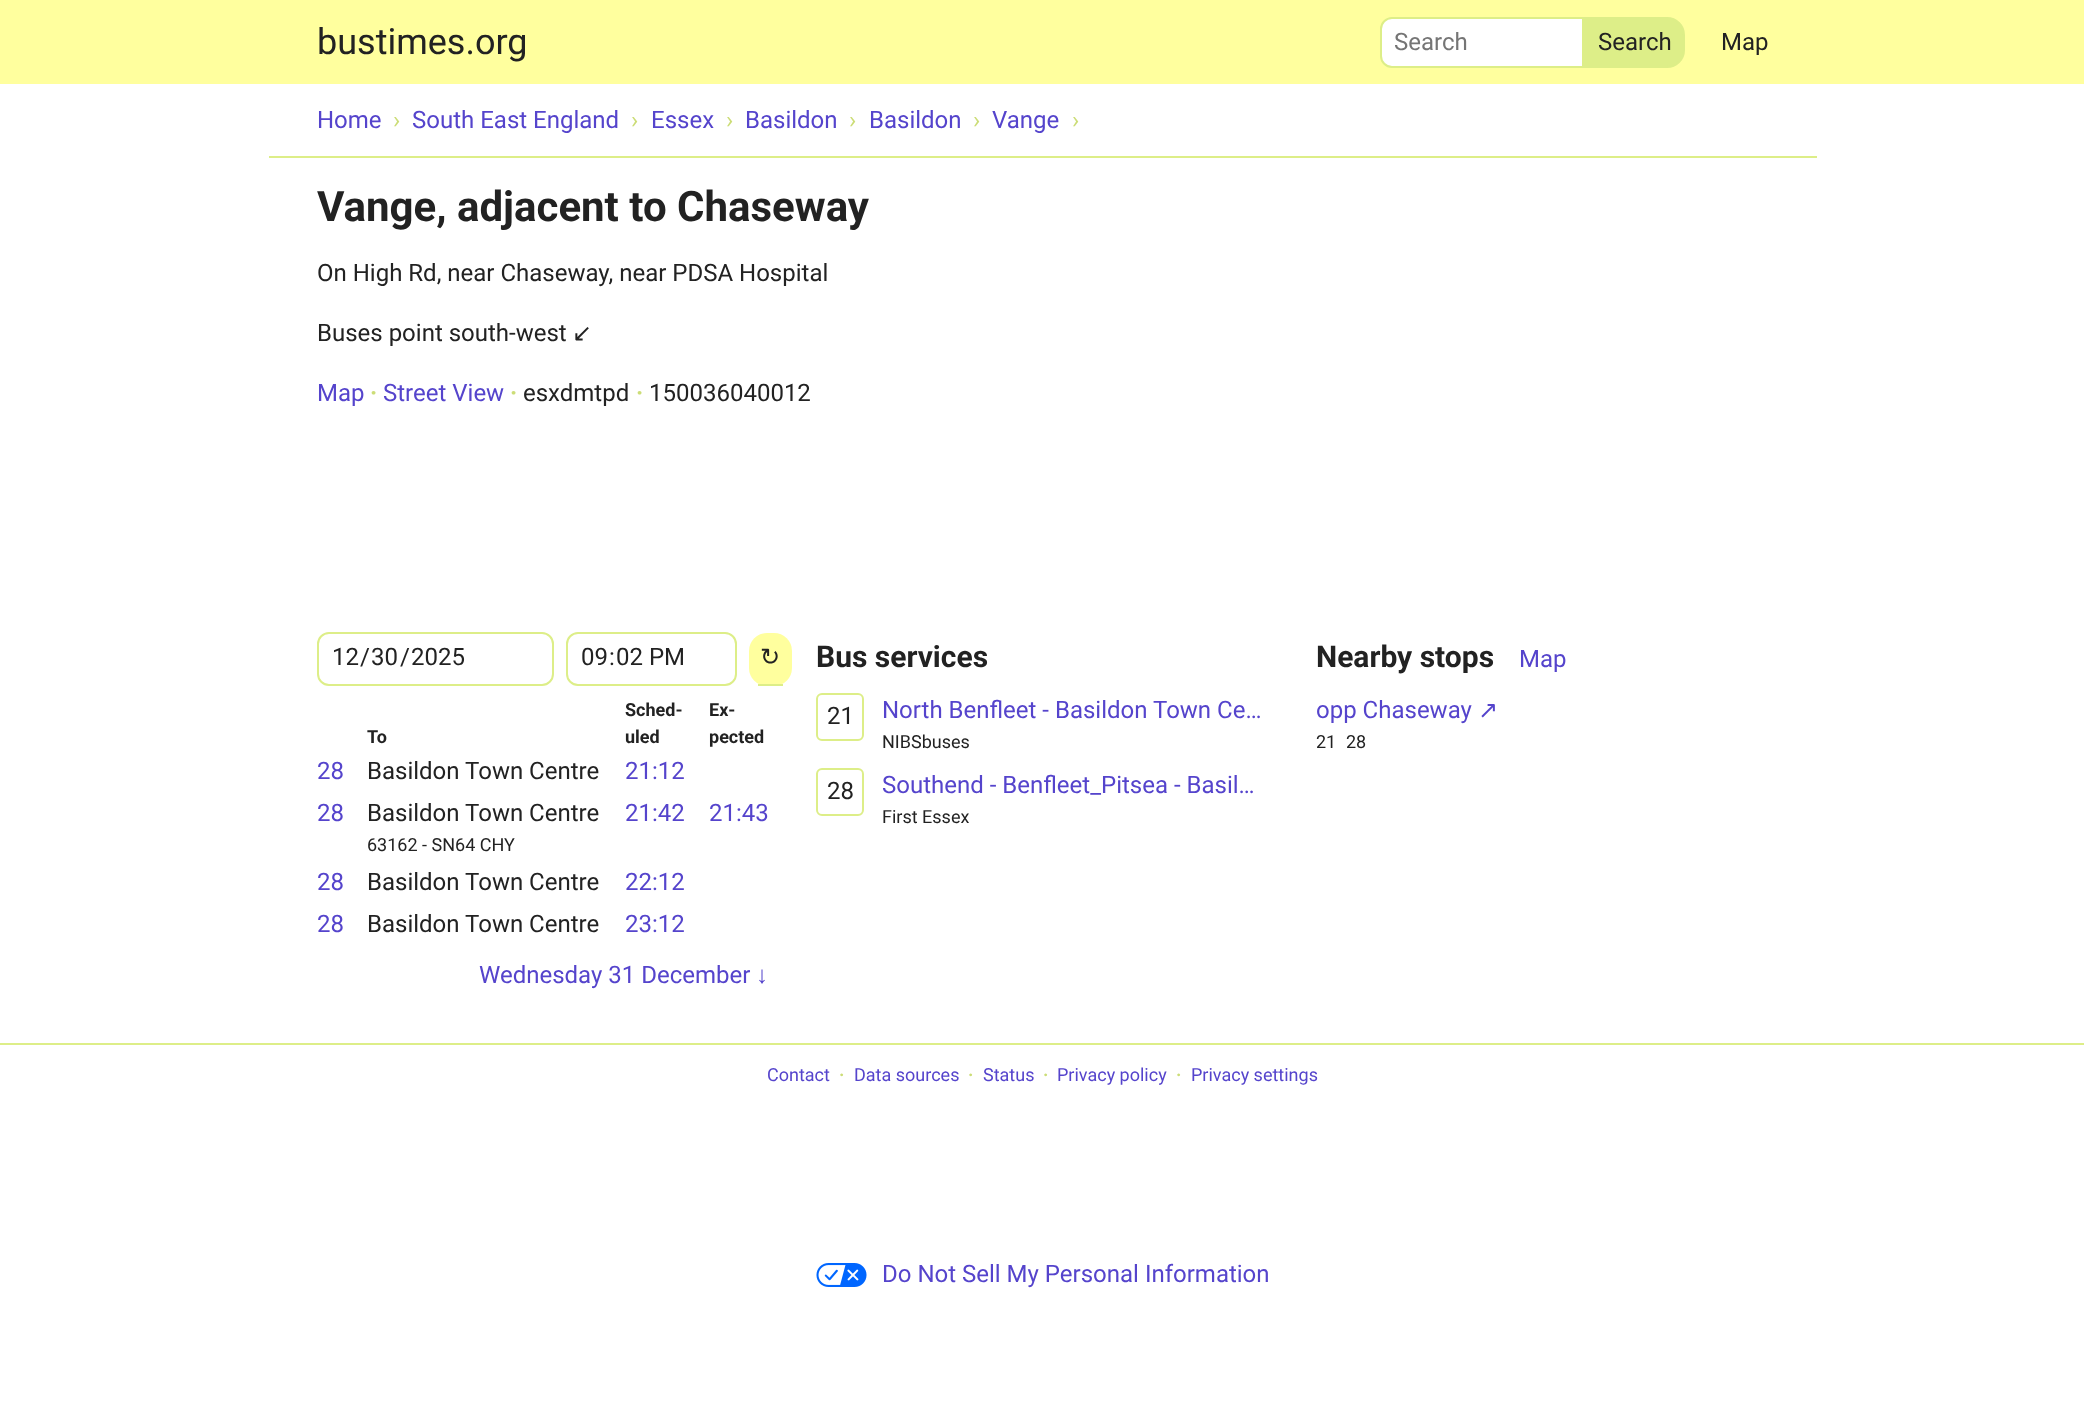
<?xml version="1.0" encoding="UTF-8"?>
<svg xmlns="http://www.w3.org/2000/svg" width="2084" height="1404">
    <rect width="100%" height="100%" fill="#FFFFFF"/>
    <rect x="0" y="0" width="2084" height="84" fill="#FFFF9E"/>
    <text x="317" y="54" font-family="Roboto" font-size="36" fill="#222222">bustimes.org</text>
    <path d="M 1392 18 H 1583 V 67 H 1392 C 1386 67 1381 62 1381 56 V 29 C 1381 23 1386 18 1392 18 Z" fill="#FFFFFF" stroke="#DDEE88" stroke-width="2"/>
    <text x="1394" y="50" font-family="Roboto" font-size="24" fill="#757575">Search</text>
    <path d="M 1585 18 H 1667 C 1676.5 18 1684 25.5 1684 35 V 50 C 1684 59.5 1676.5 67 1667 67 H 1585 Z" fill="#DDEE88" stroke="#DDEE88" stroke-width="2"/>
    <text x="1598" y="50" font-family="Roboto" font-size="24" fill="#222222">Search</text>
    <text x="1721" y="50" font-family="Roboto" font-size="24" fill="#222222">Map</text>
    <rect x="269" y="156" width="1548" height="2" fill="#DDEE88"/>
    <text x="317" y="128" font-family="Roboto" font-size="24" fill="#5544CC">Home</text>
    <text x="393" y="128" font-family="Roboto" font-size="24" fill="#CCDD77">›</text>
    <text x="412" y="128" font-family="Roboto" font-size="24" fill="#5544CC">South East England</text>
    <text x="631" y="128" font-family="Roboto" font-size="24" fill="#CCDD77">›</text>
    <text x="651" y="128" font-family="Roboto" font-size="24" fill="#5544CC">Essex</text>
    <text x="726" y="128" font-family="Roboto" font-size="24" fill="#CCDD77">›</text>
    <text x="745" y="128" font-family="Roboto" font-size="24" fill="#5544CC">Basildon</text>
    <text x="849" y="128" font-family="Roboto" font-size="24" fill="#CCDD77">›</text>
    <text x="869" y="128" font-family="Roboto" font-size="24" fill="#5544CC">Basildon</text>
    <text x="973" y="128" font-family="Roboto" font-size="24" fill="#CCDD77">›</text>
    <text x="992" y="128" font-family="Roboto" font-size="24" fill="#5544CC">Vange</text>
    <text x="1072" y="128" font-family="Roboto" font-size="24" fill="#CCDD77">›</text>
    <text x="317" y="221" font-family="Roboto" font-size="42" font-weight="700" fill="#222222">Vange, adjacent to Chaseway</text>
    <text x="317" y="281" font-family="Roboto" font-size="24" fill="#222222">On High Rd, near Chaseway, near PDSA Hospital</text>
    <text x="317" y="341" font-family="Roboto" font-size="24" fill="#222222">Buses point south-west</text>
    <text x="572" y="341" font-family="DejaVu Sans" font-size="24" fill="#222222">↙</text>
    <text x="317" y="401" font-family="Roboto" font-size="24" fill="#5544CC">Map</text>
    <text x="370" y="401" font-family="Roboto" font-size="24" font-weight="700" fill="#CCDD77">·</text>
    <text x="383" y="401" font-family="Roboto" font-size="24" fill="#5544CC">Street View</text>
    <text x="510" y="401" font-family="Roboto" font-size="24" font-weight="700" fill="#CCDD77">·</text>
    <text x="523" y="401" font-family="Roboto" font-size="24" fill="#222222">esxdmtpd</text>
    <text x="636" y="401" font-family="Roboto" font-size="24" font-weight="700" fill="#CCDD77">·</text>
    <text x="649" y="401" font-family="Roboto" font-size="24" fill="#222222">150036040012</text>
    <rect x="318" y="633" width="235" height="52" rx="11" fill="none" stroke="#DDEE88" stroke-width="2"/>
    <text x="332" y="665" font-family="Roboto" font-size="24" fill="#222222">12</text>
    <text x="360" y="665" font-family="Roboto" font-size="24" fill="#222222">/</text>
    <text x="371" y="665" font-family="Roboto" font-size="24" fill="#222222">30</text>
    <text x="400" y="665" font-family="Roboto" font-size="24" fill="#222222">/</text>
    <text x="411" y="665" font-family="Roboto" font-size="24" fill="#222222">2025</text>
    <rect x="567" y="633" width="169" height="52" rx="11" fill="none" stroke="#DDEE88" stroke-width="2"/>
    <text x="581" y="665" font-family="Roboto" font-size="24" fill="#222222">09</text>
    <text x="609" y="665" font-family="Roboto" font-size="24" fill="#222222">:</text>
    <text x="616" y="665" font-family="Roboto" font-size="24" fill="#222222">02 PM</text>
    <rect x="749" y="633" width="43" height="53" rx="18" fill="#FFFF9E"/>
    <rect x="758" y="684" width="25" height="2" fill="#DDEE88"/>
    <text x="760" y="665" font-family="DejaVu Sans" font-size="24" fill="#222222">↻</text>
    <text x="367" y="743" font-family="Roboto" font-size="18" font-weight="700" fill="#222222">To</text>
    <text font-family="Roboto" font-size="18" font-weight="700" fill="#222222">
        <tspan x="625" y="716">Sched-</tspan>
        <tspan x="625" y="743">uled</tspan>
    </text>
    <text font-family="Roboto" font-size="18" font-weight="700" fill="#222222">
        <tspan x="709" y="716">Ex-</tspan>
        <tspan x="709" y="743">pected</tspan>
    </text>
    <text x="317" y="779" font-family="Roboto" font-size="24" fill="#5544CC">28</text>
    <text x="367" y="779" font-family="Roboto" font-size="24" fill="#222222">Basildon Town Centre</text>
    <text x="625" y="779" font-family="Roboto" font-size="24" fill="#5544CC">21:12</text>
    <text x="317" y="821" font-family="Roboto" font-size="24" fill="#5544CC">28</text>
    <text x="367" y="821" font-family="Roboto" font-size="24" fill="#222222">Basildon Town Centre</text>
    <text x="367" y="851" font-family="Roboto" font-size="18" fill="#222222">63162 - SN64 CHY</text>
    <text x="625" y="821" font-family="Roboto" font-size="24" fill="#5544CC">21:42</text>
    <text x="709" y="821" font-family="Roboto" font-size="24" fill="#5544CC">21:43</text>
    <text x="317" y="890" font-family="Roboto" font-size="24" fill="#5544CC">28</text>
    <text x="367" y="890" font-family="Roboto" font-size="24" fill="#222222">Basildon Town Centre</text>
    <text x="625" y="890" font-family="Roboto" font-size="24" fill="#5544CC">22:12</text>
    <text x="317" y="932" font-family="Roboto" font-size="24" fill="#5544CC">28</text>
    <text x="367" y="932" font-family="Roboto" font-size="24" fill="#222222">Basildon Town Centre</text>
    <text x="625" y="932" font-family="Roboto" font-size="24" fill="#5544CC">23:12</text>
    <text x="479" y="983" font-family="Roboto" font-size="24" fill="#5544CC">Wednesday 31 December</text>
    <text x="756" y="983" font-family="Liberation Sans" font-size="24" fill="#5544CC">↓</text>
    <text x="816" y="667" font-family="Roboto" font-size="30" font-weight="700" fill="#222222">Bus services</text>
    <rect x="817" y="694" width="46" height="46" rx="5" fill="none" stroke="#DDEE88" stroke-width="2"/>
    <text x="827" y="724" font-family="Roboto" font-size="24" fill="#222222">21</text>
    <text x="882" y="718" font-family="Roboto" font-size="24" fill="#5544CC">North Benfleet - Basildon Town Ce…</text>
    <text x="882" y="748" font-family="Roboto" font-size="18" fill="#222222">NIBSbuses</text>
    <rect x="817" y="769" width="46" height="46" rx="5" fill="none" stroke="#DDEE88" stroke-width="2"/>
    <text x="827" y="799" font-family="Roboto" font-size="24" fill="#222222">28</text>
    <text x="882" y="793" font-family="Roboto" font-size="24" fill="#5544CC">Southend - Benfleet_Pitsea - Basil…</text>
    <text x="882" y="823" font-family="Roboto" font-size="18" fill="#222222">First Essex</text>
    <text x="1316" y="667" font-family="Roboto" font-size="30" font-weight="700" fill="#222222">Nearby stops</text>
    <text x="1519" y="667" font-family="Roboto" font-size="24" fill="#5544CC">Map</text>
    <text x="1316" y="718" font-family="Roboto" font-size="24" fill="#5544CC">opp Chaseway</text>
    <text x="1478" y="718" font-family="DejaVu Sans" font-size="24" fill="#5544CC">↗</text>
    <text x="1316" y="748" font-family="Roboto" font-size="18" fill="#222222">21</text>
    <text x="1346" y="748" font-family="Roboto" font-size="18" fill="#222222">28</text>
    <rect x="0" y="1043" width="2084" height="2" fill="#DDEE88"/>
    <text x="767" y="1081" font-family="Roboto" font-size="18" fill="#5544CC">Contact</text>
    <text x="839" y="1081" font-family="Roboto" font-size="18" font-weight="700" fill="#CCDD77">·</text>
    <text x="854" y="1081" font-family="Roboto" font-size="18" fill="#5544CC">Data sources</text>
    <text x="968" y="1081" font-family="Roboto" font-size="18" font-weight="700" fill="#CCDD77">·</text>
    <text x="983" y="1081" font-family="Roboto" font-size="18" fill="#5544CC">Status</text>
    <text x="1043" y="1081" font-family="Roboto" font-size="18" font-weight="700" fill="#CCDD77">·</text>
    <text x="1057" y="1081" font-family="Roboto" font-size="18" fill="#5544CC">Privacy policy</text>
    <text x="1176" y="1081" font-family="Roboto" font-size="18" font-weight="700" fill="#CCDD77">·</text>
    <text x="1191" y="1081" font-family="Roboto" font-size="18" fill="#5544CC">Privacy settings</text>
    <image x="816" y="1263" width="51" height="24" href="img_01.png"/>
    <text x="882" y="1282" font-family="Roboto" font-size="24" fill="#5544CC">Do Not Sell My Personal Information</text>
</svg>
